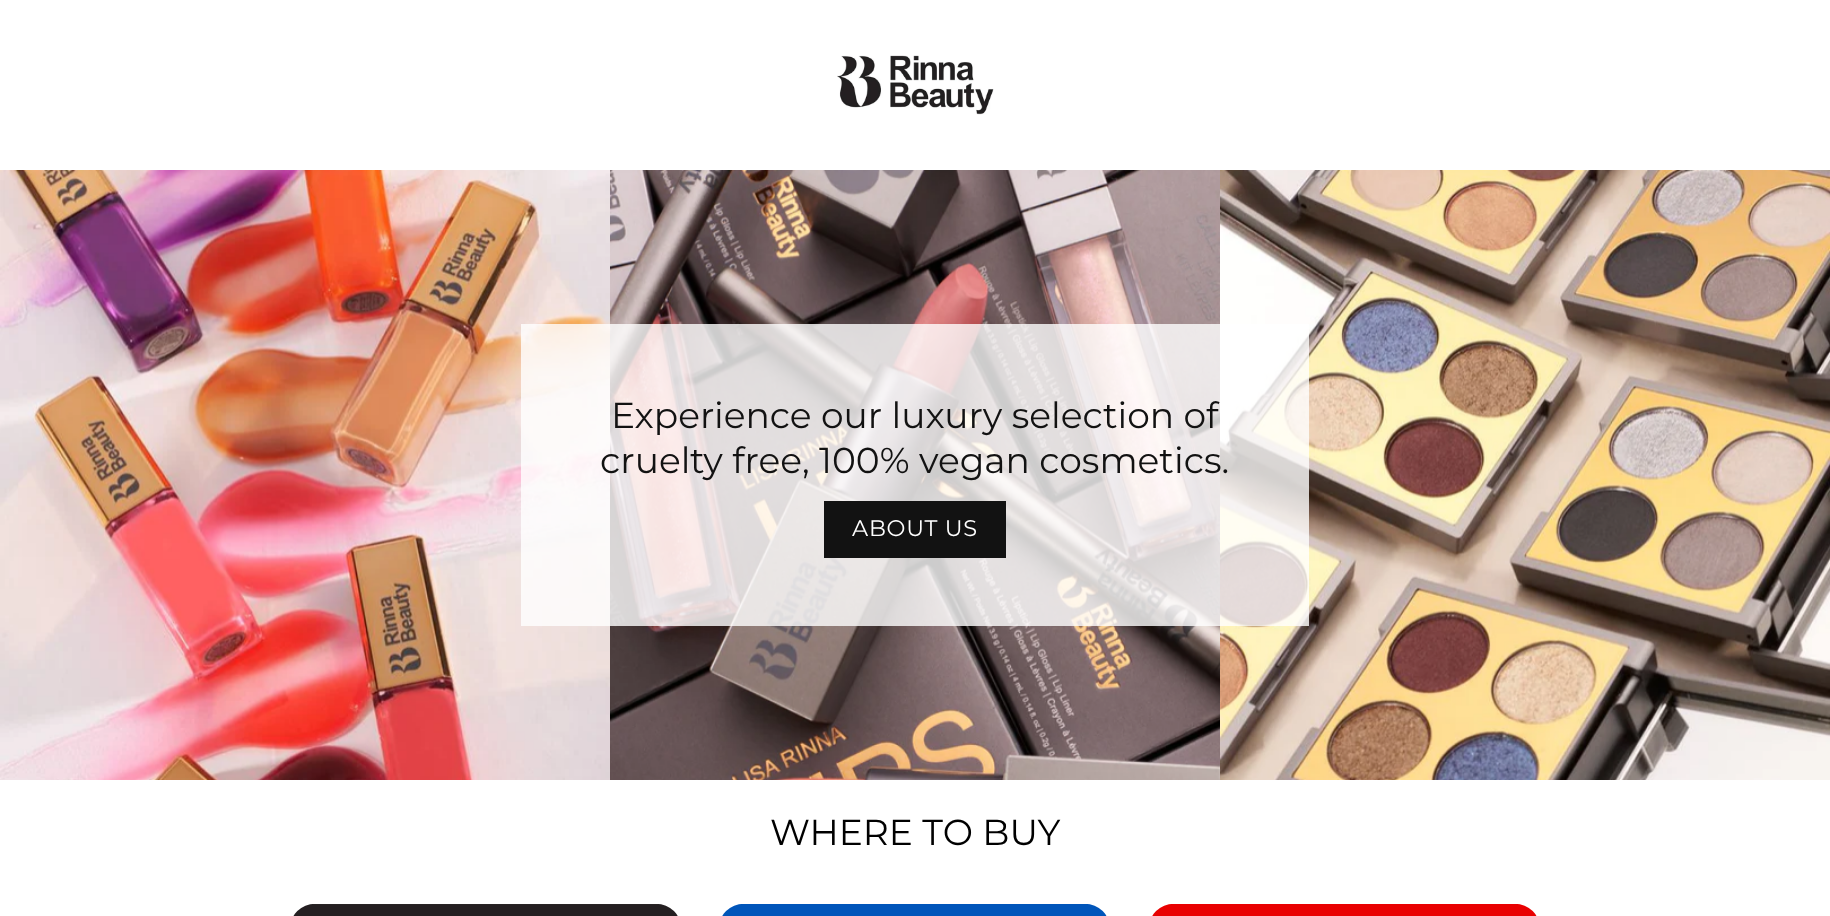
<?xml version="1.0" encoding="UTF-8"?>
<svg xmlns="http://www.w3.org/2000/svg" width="1830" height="916">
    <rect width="100%" height="100%" fill="#FFFFFF"/>
    <image x="837" y="55" width="157" height="60" href="img_01.png"/>
    <image x="0" y="170" width="610" height="610" href="img_02.png"/>
    <image x="610" y="170" width="610" height="610" href="img_03.png"/>
    <image x="1220" y="170" width="610" height="610" href="img_04.png"/>
    <rect x="521" y="324" width="788" height="302" fill="#FFFFFF" fill-opacity="0.8"/>
    <text x="611" y="428" font-family="Montserrat" font-size="36" fill="#121212">Experience our luxury selection of</text>
    <text x="600" y="473" font-family="Montserrat" font-size="36" fill="#121212">cruelty free, 100% vegan cosmetics.</text>
    <rect x="824" y="501" width="182" height="57" fill="#121212"/>
    <text x="852" y="536" font-family="Montserrat" font-size="22.5" letter-spacing="0.75" fill="#FFFFFF">ABOUT US</text>
    <text x="770" y="845" font-family="Montserrat" font-size="36" fill="#000000">WHERE TO BUY</text>
    <image x="293" y="904" width="385" height="12" href="img_05.png"/>
    <image x="722" y="904" width="385" height="12" href="img_06.png"/>
    <image x="1152" y="904" width="385" height="12" href="img_07.png"/>
</svg>
